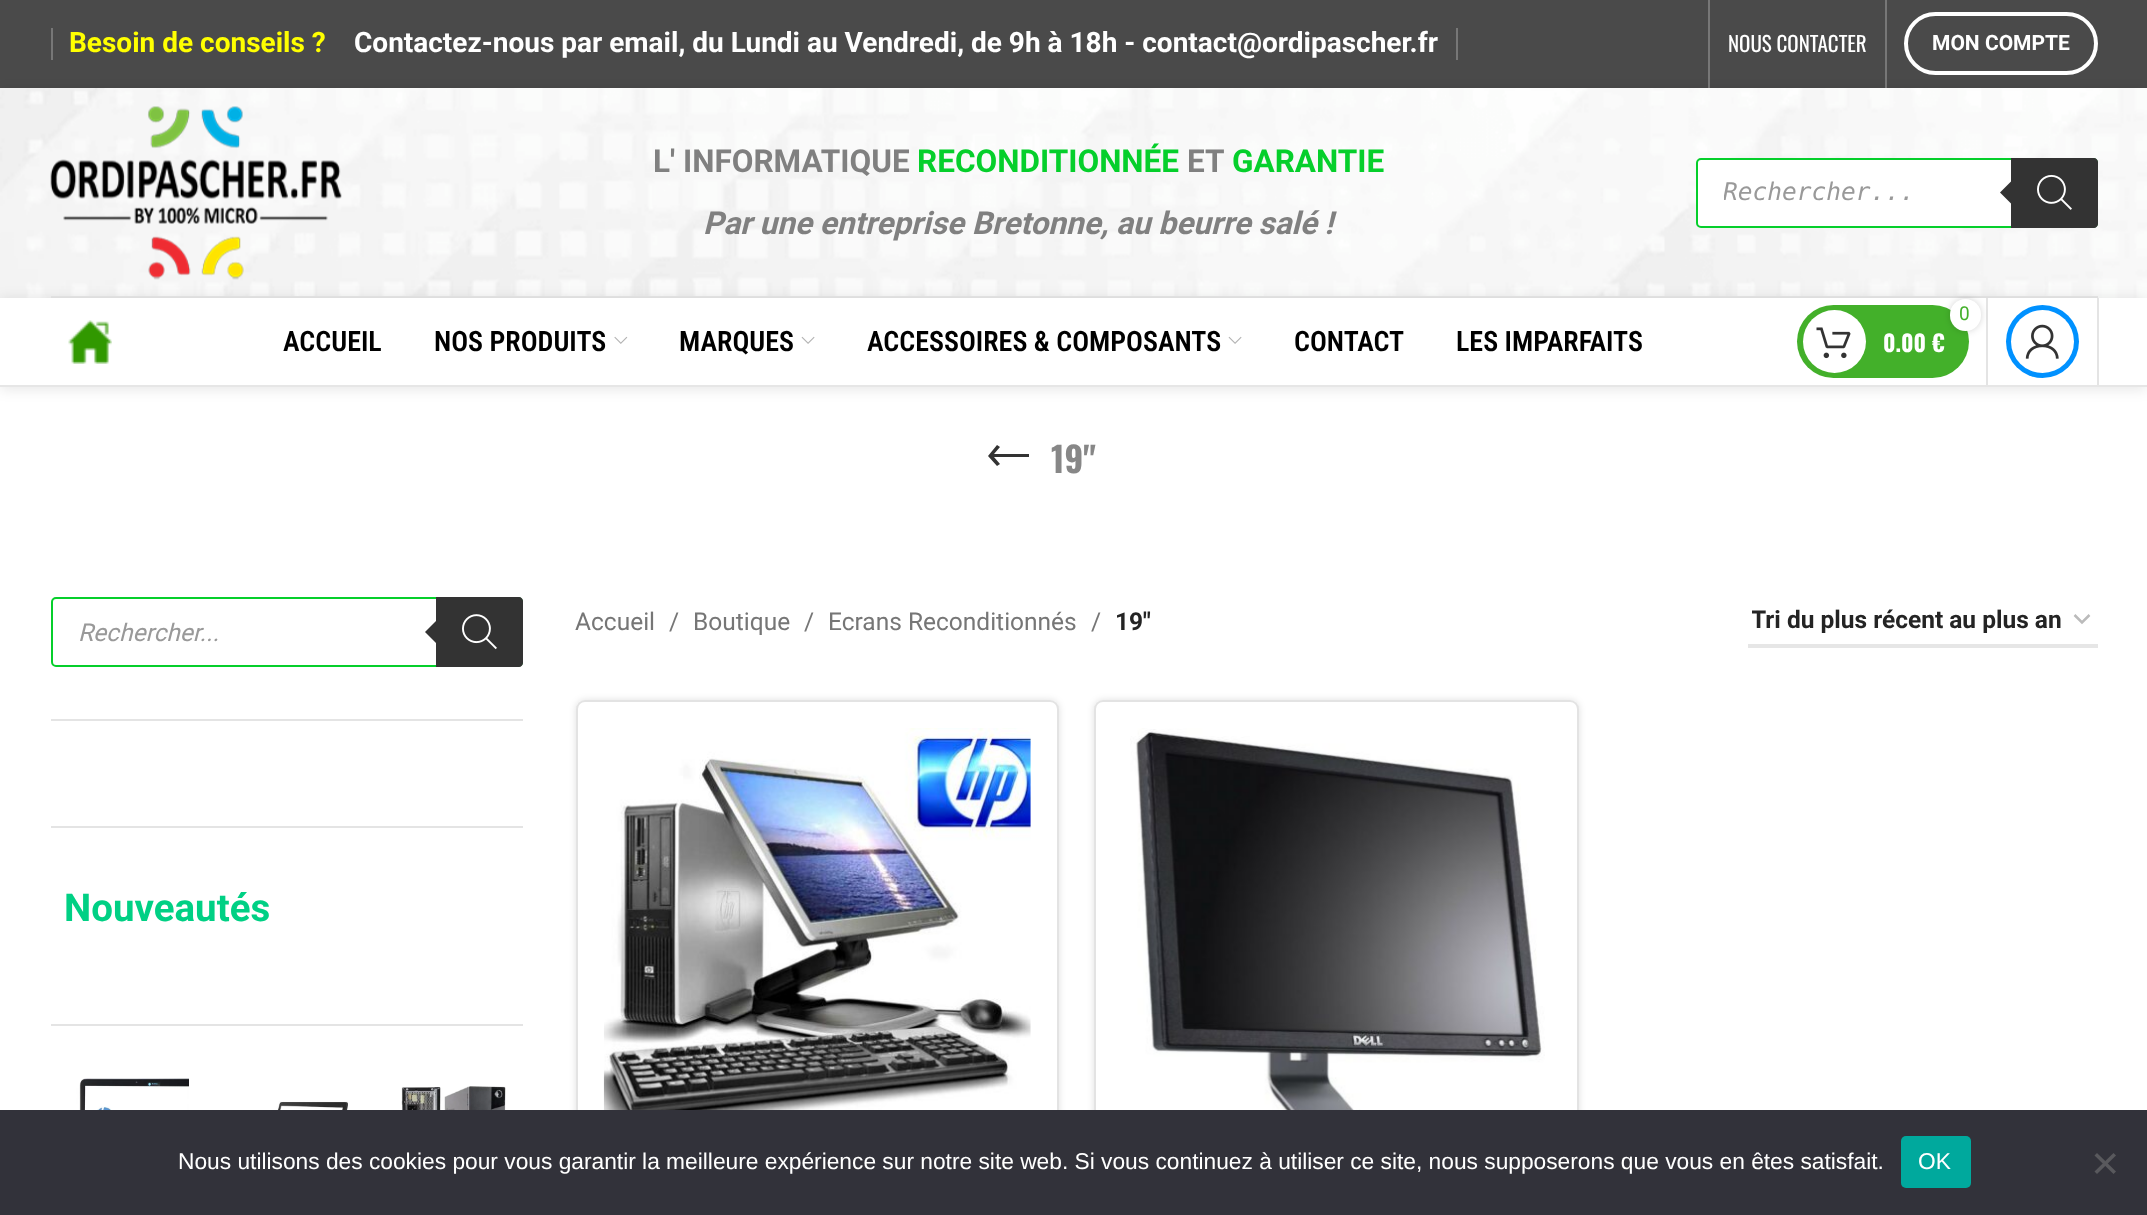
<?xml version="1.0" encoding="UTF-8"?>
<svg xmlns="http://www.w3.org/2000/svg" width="2147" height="1215">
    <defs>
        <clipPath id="clip1"><path d="M 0 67 H 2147 V 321 H 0 Z M 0 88 H 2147 V 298 H 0 Z" clip-rule="evenodd"/></clipPath>
        <filter id="blur1" x="-50%" y="-200%" width="200%" height="500%"><feGaussianBlur stdDeviation="7"/></filter>
        <clipPath id="clip2"><rect x="1724" y="179" width="346" height="28"/></clipPath>
        <filter id="blur2" x="-50%" y="-200%" width="200%" height="500%"><feGaussianBlur stdDeviation="3.5"/></filter>
        <clipPath id="clip3"><rect x="1752" y="606" width="311" height="29"/></clipPath>
        <clipPath id="clip4"><path d="M 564 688 H 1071 V 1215 H 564 Z M 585 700 H 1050 C 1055 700 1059 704 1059 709 V 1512 C 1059 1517 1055 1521 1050 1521 H 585 C 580 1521 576 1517 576 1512 V 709 C 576 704 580 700 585 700 Z" clip-rule="evenodd"/></clipPath>
        <clipPath id="clip5"><path d="M 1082 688 H 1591 V 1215 H 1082 Z M 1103 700 H 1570 C 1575 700 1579 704 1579 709 V 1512 C 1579 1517 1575 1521 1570 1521 H 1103 C 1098 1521 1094 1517 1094 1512 V 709 C 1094 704 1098 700 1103 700 Z" clip-rule="evenodd"/></clipPath>
    </defs>
    <rect width="100%" height="100%" fill="#FFFFFF"/>
    <rect x="0" y="0" width="2147" height="88" fill="#4A4A4A"/>
    <rect x="51" y="28" width="2" height="32" fill="#777777"/>
    <text x="69" y="52" font-family="Roboto" font-size="28" font-weight="700" fill="#FFFF00">Besoin de conseils ?</text>
    <text x="354" y="52" font-family="Roboto" font-size="28" font-weight="700" fill="#FFFFFF">Contactez-nous par email, du Lundi au Vendredi, de 9h à 18h - contact@ordipascher.fr</text>
    <rect x="1456" y="28" width="2" height="32" fill="#777777"/>
    <g clip-path="url(#clip1)">
        <rect x="0" y="89" width="2147" height="210" fill="#000000" fill-opacity="0.1" filter="url(#blur1)"/>
    </g>
    <rect x="1708" y="0" width="2" height="88" fill="#FFFFFF" fill-opacity="0.25"/>
    <text x="1728" y="52" font-family="Oswald" font-size="21" fill="#FFFFFF">NOUS CONTACTER</text>
    <rect x="1885" y="0" width="2" height="88" fill="#FFFFFF" fill-opacity="0.25"/>
    <rect x="1906" y="14" width="190" height="59" rx="29.5" fill="none" stroke="#FFFFFF" stroke-width="4"/>
    <text x="1932" y="50" font-family="Roboto" font-size="21" font-weight="700" fill="#FFFFFF">MON COMPTE</text>
    <image x="0" y="88" width="2147" height="210" href="img_01.png"/>
    <rect x="51" y="296" width="2047" height="2" fill="#E8E8E8"/>
    <rect x="0" y="299" width="2147" height="90" fill="#000000" fill-opacity="0.1" filter="url(#blur1)"/>
    <image x="50" y="106" width="292" height="174" href="img_02.png"/>
    <text x="653" y="172" font-family="Roboto" font-size="31.5" font-weight="700" fill="#808080">L' INFORMATIQUE</text>
    <text x="917" y="172" font-family="Roboto" font-size="31.5" font-weight="700" fill="#05CF2B">RECONDITIONNÉE</text>
    <text x="1187" y="172" font-family="Roboto" font-size="31.5" font-weight="700" fill="#808080">ET</text>
    <text x="1232" y="172" font-family="Roboto" font-size="31.5" font-weight="700" fill="#05CF2B">GARANTIE</text>
    <text x="703" y="234" font-family="Roboto" font-size="31.5" font-weight="700" font-style="italic" fill="#808080">Par une entreprise Bretonne, au beurre salé !</text>
    <rect x="1697" y="159" width="400" height="68" rx="4" fill="#FFFFFF" stroke="#05CF2B" stroke-width="2"/>
    <g clip-path="url(#clip2)">
        <text x="1723" y="200" font-family="DejaVu Sans Mono" font-size="24.5" font-style="italic" fill="#999999">Rechercher...</text>
    </g>
    <path d="M 2011 158 H 2094 C 2096 158 2098 160 2098 162 V 224 C 2098 226 2096 228 2094 228 H 2011 Z" fill="#333333"/>
    <path d="M 2014 178.5 V 206.5 L 2000 192.5 Z" fill="#333333"/>
    <image x="2037" y="174" width="35" height="36" href="img_03.png"/>
    <rect x="0" y="298" width="2147" height="87" fill="#FFFFFF"/>
    <rect x="0" y="385" width="2147" height="2" fill="#E6E6E6"/>
    <image x="68" y="320" width="44" height="44" href="img_04.png"/>
    <text x="283" y="351" font-family="Roboto Condensed" font-size="28" font-weight="600" fill="#000000">ACCUEIL</text>
    <text x="434" y="351" font-family="Roboto Condensed" font-size="28" font-weight="600" fill="#000000">NOS PRODUITS</text>
    <image x="614" y="336" width="14" height="8" href="img_05.png"/>
    <text x="679" y="351" font-family="Roboto Condensed" font-size="28" font-weight="600" fill="#000000">MARQUES</text>
    <image x="801" y="336" width="14" height="8" href="img_06.png"/>
    <text x="867" y="351" font-family="Roboto Condensed" font-size="28" font-weight="600" fill="#000000">ACCESSOIRES &amp; COMPOSANTS</text>
    <image x="1228" y="336" width="14" height="8" href="img_06.png"/>
    <text x="1294" y="351" font-family="Roboto Condensed" font-size="28" font-weight="600" fill="#000000">CONTACT</text>
    <text x="1456" y="351" font-family="Roboto Condensed" font-size="28" font-weight="600" fill="#000000">LES IMPARFAITS</text>
    <rect x="1797" y="305" width="172" height="73" rx="36.5" fill="#43B02A"/>
    <circle cx="1834.5" cy="341.5" r="31.5" fill="#FFFFFF"/>
    <rect x="1986" y="298" width="2" height="87" fill="#E4E4E4"/>
    <rect x="1950" y="299" width="31" height="32" rx="15.5" fill="#000000" fill-opacity="0.17" filter="url(#blur2)"/>
    <rect x="1950" y="299" width="31" height="32" rx="15.5" fill="#FFFFFF"/>
    <text x="1959" y="320" font-family="Roboto" font-size="19" fill="#43B02A">0</text>
    <image x="1816" y="327" width="35" height="32" href="img_07.png"/>
    <text x="1883" y="352" font-family="Oswald" font-size="22.75" font-weight="700" fill="#FFFFFF">0.00 €</text>
    <circle cx="2042.5" cy="341.5" r="36.5" fill="#0091FF"/>
    <circle cx="2042.5" cy="341.5" r="31.5" fill="#FFFFFF"/>
    <image x="2025" y="324" width="34" height="35" href="img_08.png"/>
    <rect x="2097" y="298" width="2" height="87" fill="#E4E4E4"/>
    <path d="M 1000 464 L 994 457 H 1029 V 454 H 994 L 1000 447 L 997 445 L 988 456 L 997 466 Z" fill="#333333"/>
    <text x="1051" y="473" font-family="Oswald" font-size="35" font-weight="700" fill="#878787">19"</text>
    <rect x="51" y="719" width="472" height="2" fill="#E4E4E4"/>
    <rect x="52" y="598" width="470" height="68" rx="4" fill="none" stroke="#05CF2B" stroke-width="2"/>
    <text x="78" y="641" font-family="Roboto" font-size="24.5" font-style="italic" fill="#999999">Rechercher...</text>
    <path d="M 436 597 H 519 C 521 597 523 599 523 601 V 663 C 523 665 521 667 519 667 H 436 Z" fill="#333333"/>
    <path d="M 439 618 V 646 L 425 632 Z" fill="#333333"/>
    <image x="462" y="614" width="35" height="36" href="img_09.png"/>
    <rect x="51" y="826" width="472" height="2" fill="#E4E4E4"/>
    <rect x="51" y="1024" width="472" height="2" fill="#E4E4E4"/>
    <text x="64" y="921" font-family="Roboto" font-size="38.5" font-weight="700" fill="#00D084">Nouveautés</text>
    <image x="50" y="1078" width="139" height="32" href="img_10.png"/>
    <image x="224" y="1101" width="124" height="9" href="img_11.png"/>
    <image x="401" y="1086" width="105" height="24" href="img_12.png"/>
    <text x="575" y="630" font-family="Roboto" font-size="24.5" fill="#767676">Accueil</text>
    <text x="669" y="630" font-family="Roboto" font-size="24.5" fill="#767676">/</text>
    <text x="693" y="630" font-family="Roboto" font-size="24.5" fill="#767676">Boutique</text>
    <text x="804" y="630" font-family="Roboto" font-size="24.5" fill="#767676">/</text>
    <text x="828" y="630" font-family="Roboto" font-size="24.5" fill="#767676">Ecrans Reconditionnés</text>
    <text x="1091" y="630" font-family="Roboto" font-size="24.5" fill="#767676">/</text>
    <text x="1115" y="630" font-family="Roboto" font-size="24.5" font-weight="700" fill="#242424">19"</text>
    <path d="M 2074.5 615 L 2082 622.5 L 2089.5 615" fill="none" stroke="#BBBBBB" stroke-width="2.5"/>
    <rect x="1748" y="644" width="350" height="4" fill="#E6E6E6"/>
    <g clip-path="url(#clip3)">
        <text x="1751" y="628" font-family="Roboto" font-size="24.5" font-weight="700" fill="#242424">Tri du plus récent au plus an</text>
    </g>
    <g clip-path="url(#clip4)">
        <rect x="576" y="700" width="483" height="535" rx="9" fill="#000000" fill-opacity="0.12" filter="url(#blur2)"/>
    </g>
    <rect x="577" y="701" width="481" height="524" rx="8" fill="none" stroke="#000000" stroke-opacity="0.11" stroke-width="2"/>
    <image x="603" y="728" width="428" height="382" href="img_13.png"/>
    <g clip-path="url(#clip5)">
        <rect x="1094" y="700" width="485" height="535" rx="9" fill="#000000" fill-opacity="0.12" filter="url(#blur2)"/>
    </g>
    <rect x="1095" y="701" width="483" height="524" rx="8" fill="none" stroke="#000000" stroke-opacity="0.11" stroke-width="2"/>
    <image x="1130" y="728" width="415" height="382" href="img_14.png"/>
    <rect x="0" y="1110" width="2147" height="105" fill="#32323A"/>
    <text x="178" y="1169" font-family="Liberation Sans" font-size="22.75" fill="#FFFFFF">Nous utilisons des cookies pour vous garantir la meilleure expérience sur notre site web. Si vous continuez à utiliser ce site, nous supposerons que vous en êtes satisfait.</text>
    <rect x="1901" y="1136" width="70" height="52" rx="5" fill="#00A99D"/>
    <text x="1918" y="1169" font-family="Liberation Sans" font-size="22.75" fill="#FFFFFF">OK</text>
    <path d="M 2113.5 1153 L 2116 1155.5 L 2097 1174 L 2094.5 1171.5 Z" fill="#59595D"/>
    <path d="M 2094.5 1155.5 L 2097 1153 L 2116 1171.5 L 2113.5 1174 Z" fill="#59595D"/>
</svg>
